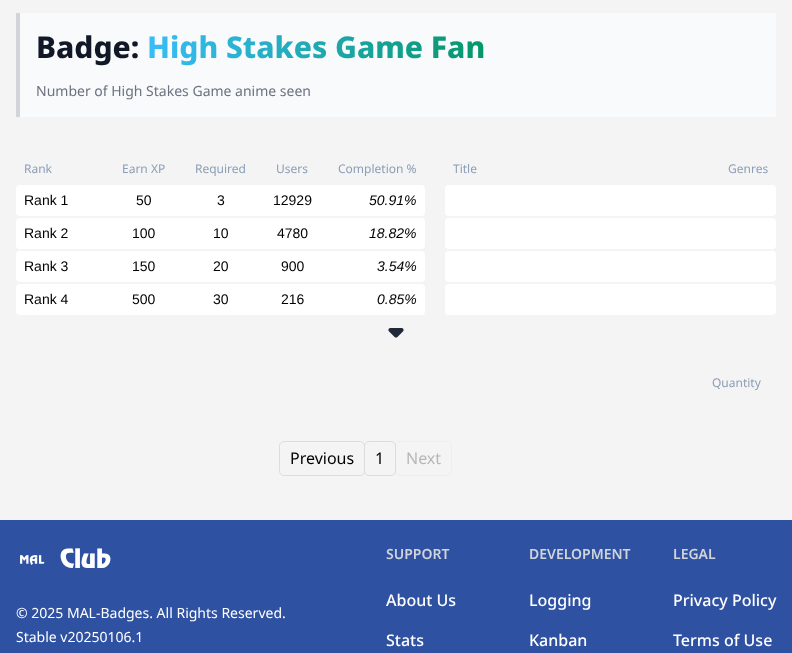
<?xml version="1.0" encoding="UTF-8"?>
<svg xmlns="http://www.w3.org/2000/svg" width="792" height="653">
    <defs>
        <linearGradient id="g1" gradientUnits="userSpaceOnUse" x1="147" y1="47" x2="485" y2="46"><stop offset="0" stop-color="#38BDF8"/><stop offset="1" stop-color="#059669"/></linearGradient>
    </defs>
    <rect width="100%" height="100%" fill="#F4F4F4"/>
    <rect x="20" y="13" width="756" height="104" fill="#F9FAFB"/>
    <rect x="16" y="13" width="4" height="104" fill="#D1D5DB"/>
    <text x="36" y="58" font-family="Noto Sans" font-size="30" font-weight="800" fill="#111827">Badge:</text>
    <text x="147" y="58" font-family="Noto Sans" font-size="30" font-weight="800" fill="url(#g1)">High Stakes Game Fan</text>
    <text x="36" y="96" font-family="Noto Sans" font-size="14" fill="#6B7280">Number of High Stakes Game anime seen</text>
    <text x="24" y="173" font-family="Noto Sans" font-size="12" fill="#8C9DB6">Rank</text>
    <text x="122" y="173" font-family="Noto Sans" font-size="12" fill="#8C9DB6">Earn XP</text>
    <text x="195" y="173" font-family="Noto Sans" font-size="12" fill="#8C9DB6">Required</text>
    <text x="276" y="173" font-family="Noto Sans" font-size="12" fill="#8C9DB6">Users</text>
    <text x="338" y="173" font-family="Noto Sans" font-size="12" fill="#8C9DB6">Completion %</text>
    <rect x="16" y="185" width="409" height="31" rx="4" fill="#FFFFFF"/>
    <text x="24" y="205" font-family="Liberation Sans" font-size="14" fill="#000000">Rank 1</text>
    <text x="136" y="205" font-family="Liberation Sans" font-size="14" fill="#000000">50</text>
    <text x="217" y="205" font-family="Liberation Sans" font-size="14" fill="#000000">3</text>
    <text x="273" y="205" font-family="Liberation Sans" font-size="14" fill="#000000">12929</text>
    <text x="369" y="205" font-family="Liberation Sans" font-size="14" font-style="italic" fill="#000000">50.91%</text>
    <rect x="16" y="218" width="409" height="31" rx="4" fill="#FFFFFF"/>
    <text x="24" y="238" font-family="Liberation Sans" font-size="14" fill="#000000">Rank 2</text>
    <text x="132" y="238" font-family="Liberation Sans" font-size="14" fill="#000000">100</text>
    <text x="213" y="238" font-family="Liberation Sans" font-size="14" fill="#000000">10</text>
    <text x="277" y="238" font-family="Liberation Sans" font-size="14" fill="#000000">4780</text>
    <text x="369" y="238" font-family="Liberation Sans" font-size="14" font-style="italic" fill="#000000">18.82%</text>
    <rect x="16" y="251" width="409" height="31" rx="4" fill="#FFFFFF"/>
    <text x="24" y="271" font-family="Liberation Sans" font-size="14" fill="#000000">Rank 3</text>
    <text x="132" y="271" font-family="Liberation Sans" font-size="14" fill="#000000">150</text>
    <text x="213" y="271" font-family="Liberation Sans" font-size="14" fill="#000000">20</text>
    <text x="281" y="271" font-family="Liberation Sans" font-size="14" fill="#000000">900</text>
    <text x="377" y="271" font-family="Liberation Sans" font-size="14" font-style="italic" fill="#000000">3.54%</text>
    <rect x="16" y="284" width="409" height="31" rx="4" fill="#FFFFFF"/>
    <text x="24" y="304" font-family="Liberation Sans" font-size="14" fill="#000000">Rank 4</text>
    <text x="132" y="304" font-family="Liberation Sans" font-size="14" fill="#000000">500</text>
    <text x="213" y="304" font-family="Liberation Sans" font-size="14" fill="#000000">30</text>
    <text x="281" y="304" font-family="Liberation Sans" font-size="14" fill="#000000">216</text>
    <text x="377" y="304" font-family="Liberation Sans" font-size="14" font-style="italic" fill="#000000">0.85%</text>
    <text x="453" y="173" font-family="Noto Sans" font-size="12" fill="#8C9DB6">Title</text>
    <text x="728" y="173" font-family="Noto Sans" font-size="12" fill="#8C9DB6">Genres</text>
    <rect x="445" y="185" width="331" height="31" rx="4" fill="#FFFFFF"/>
    <rect x="445" y="218" width="331" height="31" rx="4" fill="#FFFFFF"/>
    <rect x="445" y="251" width="331" height="31" rx="4" fill="#FFFFFF"/>
    <rect x="445" y="284" width="331" height="31" rx="4" fill="#FFFFFF"/>
    <image x="388" y="328" width="16" height="10" href="img_01.png"/>
    <text x="712" y="387" font-family="Noto Sans" font-size="12" fill="#8C9DB6">Quantity</text>
    <rect x="279.5" y="441.5" width="85" height="34" rx="4.5" fill="none" stroke="#DDDDDD"/>
    <text x="290" y="464" font-family="Noto Sans" font-size="16" fill="#000000">Previous</text>
    <rect x="364.5" y="441.5" width="31" height="34" rx="4.5" fill="none" stroke="#DDDDDD"/>
    <text x="375" y="464" font-family="Noto Sans" font-size="16" fill="#000000">1</text>
    <rect x="395.5" y="441.5" width="56" height="34" rx="4.5" fill="none" stroke="#DDDDDD" stroke-opacity="0.25"/>
    <text x="406" y="464" font-family="Noto Sans" font-size="16" fill="#B7B7B7">Next</text>
    <rect x="0" y="520" width="792" height="133" fill="#2E51A2"/>
    <image x="20" y="555" width="25" height="10" href="img_02.png"/>
    <text x="60" y="568" font-family="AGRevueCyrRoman" font-size="24" font-weight="500" fill="#FFFFFF">Club</text>
    <text font-family="Noto Sans" font-size="14" fill="#FFFFFF">
        <tspan x="16" y="618">© 2025 MAL-Badges. All Rights Reserved.</tspan>
        <tspan x="16" y="642">Stable v20250106.1</tspan>
    </text>
    <text x="386" y="559" font-family="Noto Sans" font-size="14" font-weight="600" fill="#D1D5DB">SUPPORT</text>
    <text x="386" y="606" font-family="Noto Sans" font-size="16" font-weight="500" fill="#FFFFFF">About Us</text>
    <text x="386" y="646" font-family="Noto Sans" font-size="16" font-weight="500" fill="#FFFFFF">Stats</text>
    <text x="529" y="559" font-family="Noto Sans" font-size="14" font-weight="600" fill="#D1D5DB">DEVELOPMENT</text>
    <text x="529" y="606" font-family="Noto Sans" font-size="16" font-weight="500" fill="#FFFFFF">Logging</text>
    <text x="529" y="646" font-family="Noto Sans" font-size="16" font-weight="500" fill="#FFFFFF">Kanban</text>
    <text x="673" y="559" font-family="Noto Sans" font-size="14" font-weight="600" fill="#D1D5DB">LEGAL</text>
    <text x="673" y="606" font-family="Noto Sans" font-size="16" font-weight="500" fill="#FFFFFF">Privacy Policy</text>
    <text x="673" y="646" font-family="Noto Sans" font-size="16" font-weight="500" fill="#FFFFFF">Terms of Use</text>
</svg>
